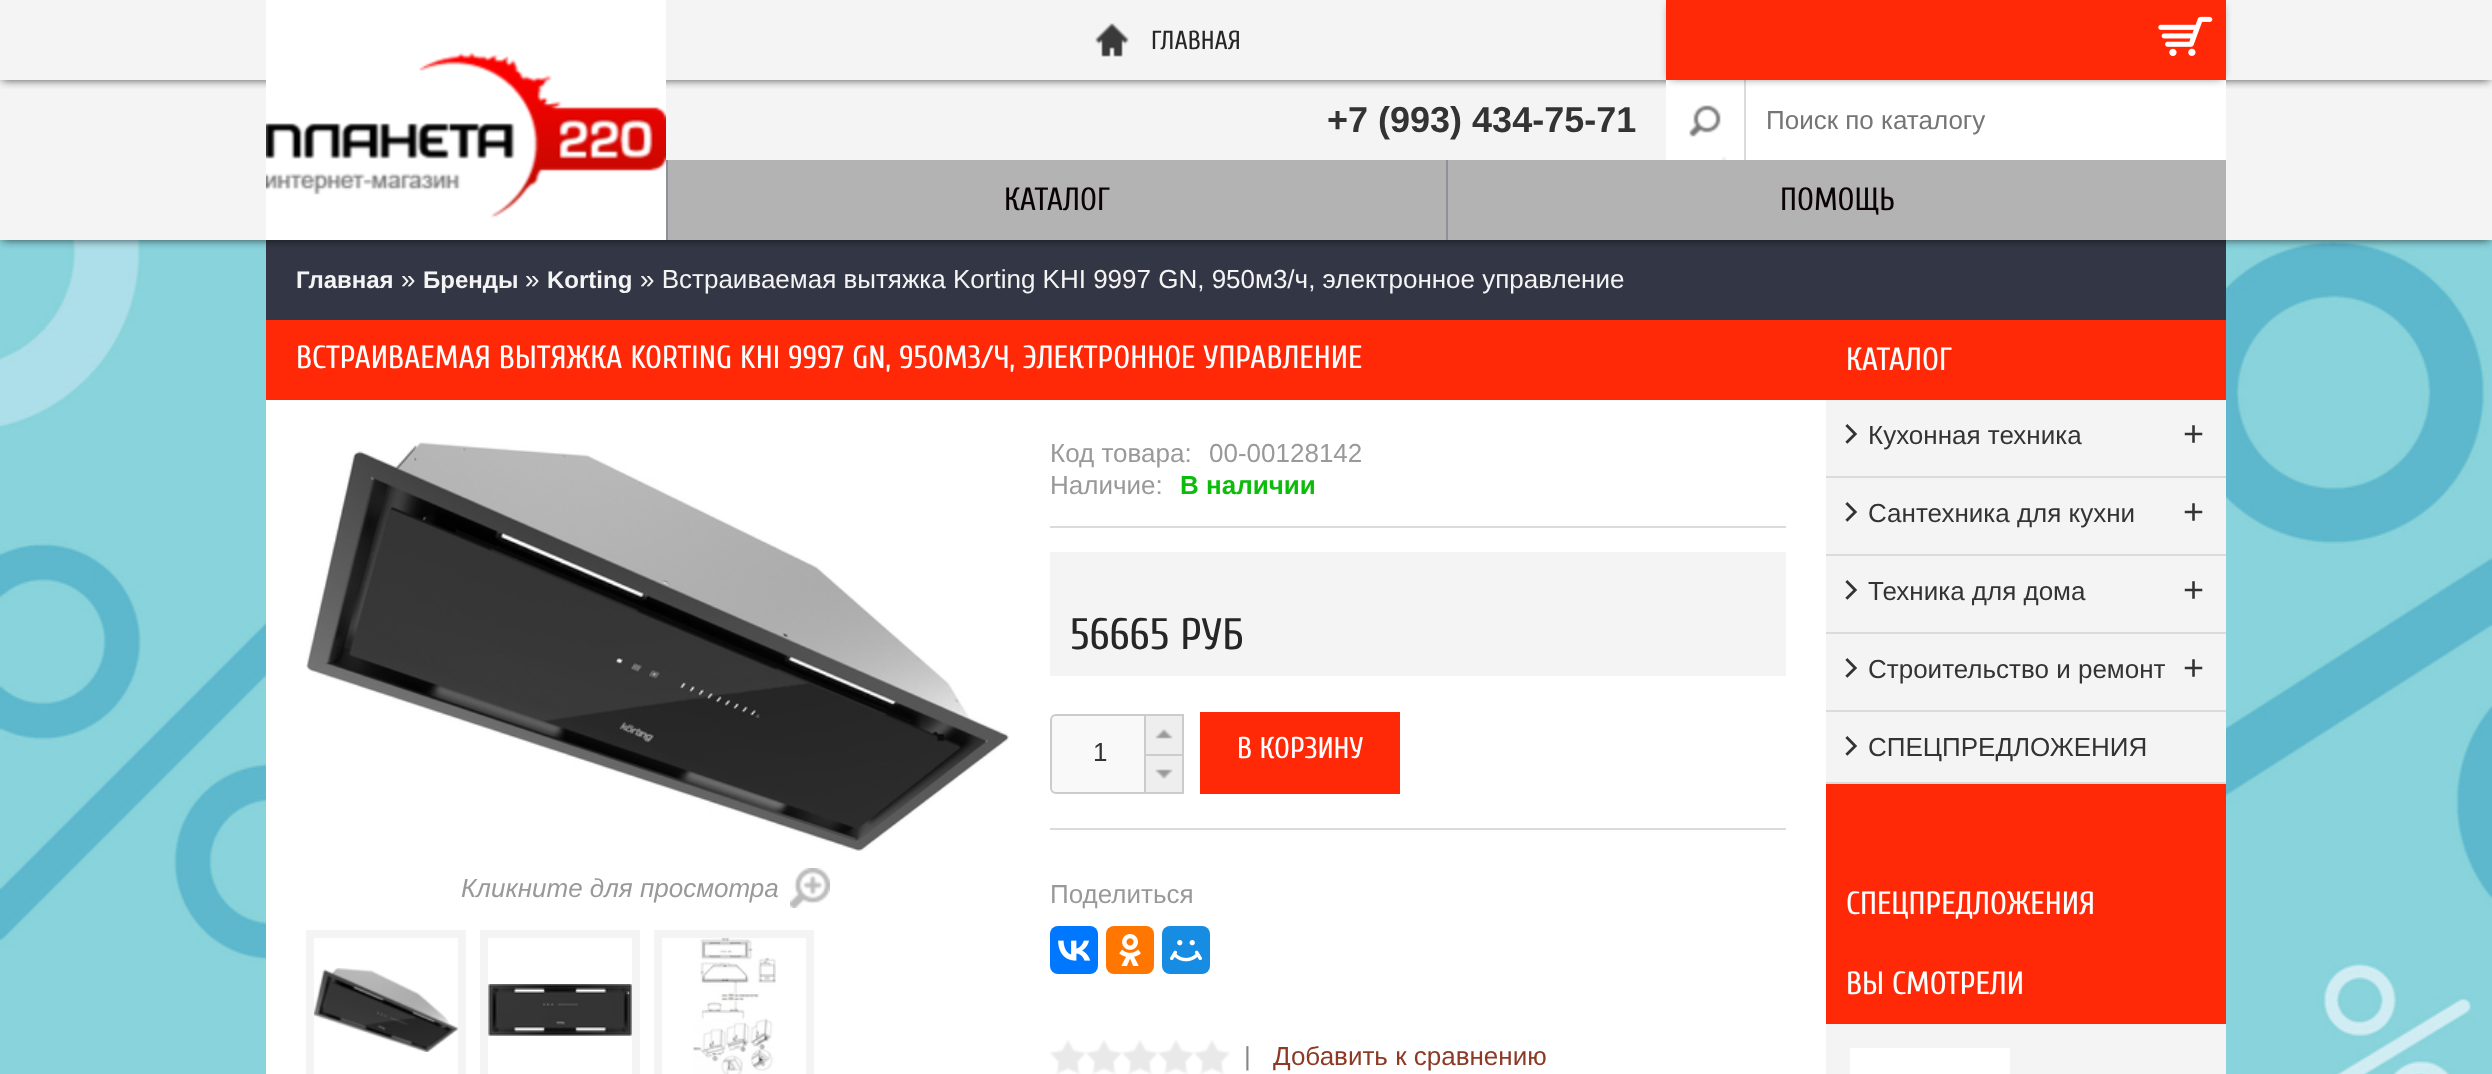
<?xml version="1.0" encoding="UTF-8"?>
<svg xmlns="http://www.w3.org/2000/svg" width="2492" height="1074">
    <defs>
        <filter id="blur1" x="-50%" y="-200%" width="200%" height="500%"><feGaussianBlur stdDeviation="5"/></filter>
        <clipPath id="clip1"><rect x="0" y="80" width="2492" height="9"/></clipPath>
    </defs>
    <rect width="100%" height="100%" fill="#FFFFFF"/>
    <image x="0" y="240" width="2492" height="834" href="img_01.png"/>
    <rect x="266" y="240" width="1960" height="80" fill="#333745"/>
    <rect x="2" y="4" width="2488" height="236" fill="#000000" fill-opacity="0.7" filter="url(#blur1)"/>
    <rect x="0" y="0" width="2492" height="240" fill="#F4F4F4"/>
    <g clip-path="url(#clip1)">
        <rect x="2" y="4" width="2488" height="76" fill="#000000" fill-opacity="0.7" filter="url(#blur1)"/>
    </g>
    <rect x="266" y="0" width="400" height="240" fill="#FFFFFF"/>
    <image x="266" y="52" width="400" height="166" href="img_02.png"/>
    <image x="1095" y="23" width="34" height="34" href="img_03.png"/>
    <text x="1151" y="49" font-family="Cuprum" font-size="26" fill="#262626">ГЛАВНАЯ</text>
    <rect x="1666" y="80" width="560" height="80" fill="#FFFFFF"/>
    <rect x="1744" y="80" width="2" height="80" fill="#DBDBDB"/>
    <rect x="1670" y="6" width="552" height="72" fill="#000000" fill-opacity="0.6" filter="url(#blur1)"/>
    <rect x="1666" y="0" width="560" height="80" fill="#FF2908"/>
    <image x="2158" y="16" width="55" height="40" href="img_04.png"/>
    <text x="1327" y="132" font-family="Liberation Sans" font-size="36" font-weight="700" fill="#333333">+7 (993) 434-75-71</text>
    <image x="1689" y="105" width="38" height="55" href="img_05.png"/>
    <text x="1766" y="129" font-family="Liberation Sans" font-size="26" fill="#757575">Поиск по каталогу</text>
    <rect x="668" y="160" width="1558" height="80" fill="#B3B3B3"/>
    <rect x="666" y="160" width="2" height="80" fill="#8E919C"/>
    <text x="1004" y="210" font-family="Cuprum" font-size="32" fill="#0A0204">КАТАЛОГ</text>
    <rect x="1446" y="160" width="2" height="80" fill="#8E919C"/>
    <text x="1780" y="210" font-family="Cuprum" font-size="32" fill="#0A0204">ПОМОЩЬ</text>
    <text x="296" y="288" font-family="Liberation Sans" font-size="24" font-weight="700" fill="#F4F4F4">Главная</text>
    <text x="401" y="288" font-family="Liberation Sans" font-size="26" fill="#F4F4F4">»</text>
    <text x="423" y="288" font-family="Liberation Sans" font-size="24" font-weight="700" fill="#F4F4F4">Бренды</text>
    <text x="525" y="288" font-family="Liberation Sans" font-size="26" fill="#F4F4F4">»</text>
    <text x="547" y="288" font-family="Liberation Sans" font-size="24" font-weight="700" fill="#F4F4F4">Korting</text>
    <text x="640" y="288" font-family="Liberation Sans" font-size="26" fill="#F4F4F4">» Встраиваемая вытяжка Korting KHI 9997 GN, 950м3/ч, электронное управление</text>
    <rect x="266" y="400" width="1560" height="674" fill="#FFFFFF"/>
    <rect x="266" y="320" width="1960" height="80" fill="#FF2908"/>
    <text x="296" y="368" font-family="Cuprum" font-size="32" fill="#FFFFFF">ВСТРАИВАЕМАЯ ВЫТЯЖКА KORTING KHI 9997 GN, 950М3/Ч, ЭЛЕКТРОННОЕ УПРАВЛЕНИЕ</text>
    <image x="306" y="442" width="703" height="409" href="img_06.png"/>
    <text x="461" y="897" font-family="Liberation Sans" font-size="26" font-style="italic" fill="#999999">Кликните для просмотра</text>
    <image x="790" y="868" width="40" height="40" href="img_07.png"/>
    <rect x="310" y="934" width="152" height="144" fill="none" stroke="#F4F4F4" stroke-width="8"/>
    <image x="314" y="968" width="144" height="84" href="img_08.png"/>
    <rect x="484" y="934" width="152" height="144" fill="none" stroke="#F4F4F4" stroke-width="8"/>
    <image x="488" y="984" width="144" height="52" href="img_09.png"/>
    <rect x="658" y="934" width="152" height="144" fill="none" stroke="#F4F4F4" stroke-width="8"/>
    <image x="692" y="938" width="84" height="136" href="img_10.png"/>
    <rect x="1050" y="526" width="736" height="2" fill="#DBDBDB"/>
    <text x="1050" y="462" font-family="Liberation Sans" font-size="26" fill="#999999">Код товара:</text>
    <text x="1209" y="462" font-family="Liberation Sans" font-size="26" fill="#999999">00-00128142</text>
    <text x="1050" y="494" font-family="Liberation Sans" font-size="26" fill="#999999">Наличие:</text>
    <text x="1180" y="494" font-family="Liberation Sans" font-size="26" font-weight="700" fill="#0BBC0B">В наличии</text>
    <rect x="1050" y="552" width="736" height="124" fill="#F4F4F4"/>
    <text x="1070" y="649" font-family="Cuprum" font-size="44" fill="#262626">56665 РУБ</text>
    <rect x="1050" y="828" width="736" height="2" fill="#DBDBDB"/>
    <rect x="1051" y="715" width="98" height="78" rx="5" fill="#F9F9F9" stroke="#CCCCCC" stroke-width="2"/>
    <text x="1093" y="761" font-family="Liberation Sans" font-size="26" fill="#333333">1</text>
    <rect x="1146" y="716" width="36" height="38" fill="#EEEEEE"/>
    <image x="1155" y="729" width="18" height="10" href="img_11.png"/>
    <rect x="1144" y="714" width="40" height="2" fill="#CCCCCC"/>
    <rect x="1182" y="714" width="2" height="40" fill="#CCCCCC"/>
    <rect x="1144" y="714" width="2" height="40" fill="#CCCCCC"/>
    <rect x="1146" y="756" width="36" height="36" fill="#EEEEEE"/>
    <image x="1155" y="769" width="18" height="10" href="img_12.png"/>
    <rect x="1145" y="755" width="38" height="38" fill="none" stroke="#CCCCCC" stroke-width="2"/>
    <rect x="1200" y="712" width="200" height="82" fill="#FF2908"/>
    <text x="1237" y="758" font-family="Cuprum" font-size="30" fill="#FFFFFF">В КОРЗИНУ</text>
    <text x="1050" y="903" font-family="Liberation Sans" font-size="26" fill="#999999">Поделиться</text>
    <rect x="1050" y="926" width="48" height="48" rx="8" fill="#0077FF"/>
    <image x="1058" y="940" width="33" height="21" href="img_13.png"/>
    <rect x="1106" y="926" width="48" height="48" rx="8" fill="#FF7700"/>
    <image x="1119" y="934" width="22" height="32" href="img_14.png"/>
    <rect x="1162" y="926" width="48" height="48" rx="8" fill="#168DE2"/>
    <image x="1170" y="940" width="32" height="22" href="img_15.png"/>
    <image x="1050" y="1040" width="36" height="34" href="img_16.png"/>
    <image x="1086" y="1040" width="36" height="34" href="img_16.png"/>
    <image x="1122" y="1040" width="36" height="34" href="img_16.png"/>
    <image x="1158" y="1040" width="36" height="34" href="img_16.png"/>
    <image x="1194" y="1040" width="36" height="34" href="img_16.png"/>
    <text x="1244" y="1065" font-family="Liberation Sans" font-size="26" fill="#888888">|</text>
    <text x="1273" y="1065" font-family="Liberation Sans" font-size="26" fill="#8C3A25">Добавить к сравнению</text>
    <text x="1846" y="370" font-family="Cuprum" font-size="32" fill="#FFFFFF">КАТАЛОГ</text>
    <rect x="1826" y="400" width="400" height="674" fill="#F4F4F4"/>
    <rect x="1826" y="476" width="400" height="2" fill="#DBDBDB"/>
    <text x="1840" y="444" font-family="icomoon" font-size="22" fill="#333333">1</text>
    <text x="1868" y="444" font-family="Liberation Sans" font-size="26" fill="#333333">Кухонная техника</text>
    <text x="2183" y="446" font-family="Liberation Sans" font-size="36" fill="#333333">+</text>
    <rect x="1826" y="554" width="400" height="2" fill="#DBDBDB"/>
    <text x="1840" y="522" font-family="icomoon" font-size="22" fill="#333333">1</text>
    <text x="1868" y="522" font-family="Liberation Sans" font-size="26" fill="#333333">Сантехника для кухни</text>
    <text x="2183" y="524" font-family="Liberation Sans" font-size="36" fill="#333333">+</text>
    <rect x="1826" y="632" width="400" height="2" fill="#DBDBDB"/>
    <text x="1840" y="600" font-family="icomoon" font-size="22" fill="#333333">1</text>
    <text x="1868" y="600" font-family="Liberation Sans" font-size="26" fill="#333333">Техника для дома</text>
    <text x="2183" y="602" font-family="Liberation Sans" font-size="36" fill="#333333">+</text>
    <rect x="1826" y="710" width="400" height="2" fill="#DBDBDB"/>
    <text x="1840" y="678" font-family="icomoon" font-size="22" fill="#333333">1</text>
    <text x="1868" y="678" font-family="Liberation Sans" font-size="26" fill="#333333">Строительство и ремонт</text>
    <text x="2183" y="680" font-family="Liberation Sans" font-size="36" fill="#333333">+</text>
    <rect x="1826" y="782" width="400" height="2" fill="#DBDBDB"/>
    <text x="1840" y="756" font-family="icomoon" font-size="22" fill="#333333">1</text>
    <text x="1868" y="756" font-family="Liberation Sans" font-size="26" fill="#333333">СПЕЦПРЕДЛОЖЕНИЯ</text>
    <rect x="1826" y="784" width="400" height="240" fill="#FF2908"/>
    <text x="1846" y="914" font-family="Cuprum" font-size="32" fill="#FFFFFF">СПЕЦПРЕДЛОЖЕНИЯ</text>
    <text x="1846" y="994" font-family="Cuprum" font-size="32" fill="#FFFFFF">ВЫ СМОТРЕЛИ</text>
    <rect x="1850" y="1048" width="160" height="26" fill="#FFFFFF"/>
</svg>
